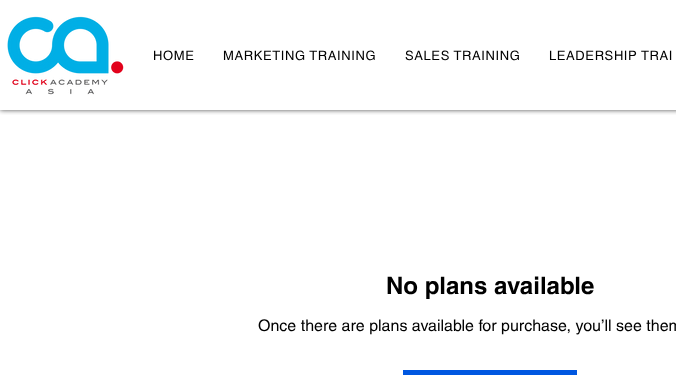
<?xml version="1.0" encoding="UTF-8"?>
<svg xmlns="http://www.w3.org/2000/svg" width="676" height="375">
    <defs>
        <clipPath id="clip1"><rect x="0" y="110" width="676" height="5"/></clipPath>
        <filter id="blur1" x="-50%" y="-200%" width="200%" height="500%"><feGaussianBlur stdDeviation="2.5"/></filter>
    </defs>
    <rect width="100%" height="100%" fill="#FFFFFF"/>
    <g clip-path="url(#clip1)">
        <rect x="0" y="0" width="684" height="110" fill="#000000" fill-opacity="0.7" filter="url(#blur1)"/>
    </g>
    <image x="7" y="16" width="117" height="79" href="img_01.png"/>
    <text x="153" y="60" font-family="helvetica" font-size="13" letter-spacing="0.6" fill="#000000">HOME</text>
    <text x="223" y="60" font-family="helvetica" font-size="13" letter-spacing="0.6" fill="#000000">MARKETING TRAINING</text>
    <text x="405" y="60" font-family="helvetica" font-size="13" letter-spacing="0.6" fill="#000000">SALES TRAINING</text>
    <text x="549" y="60" font-family="helvetica" font-size="13" letter-spacing="0.6" fill="#000000">LEADERSHIP TRAI</text>
    <text x="386" y="294" font-family="helvetica" font-size="24" font-weight="700" fill="#000000">No plans available</text>
    <text x="258" y="331" font-family="helvetica" font-size="16" fill="#000000">Once there are plans available for purchase, you’ll see them</text>
    <rect x="403" y="370" width="174" height="5" fill="#0057E1"/>
</svg>
